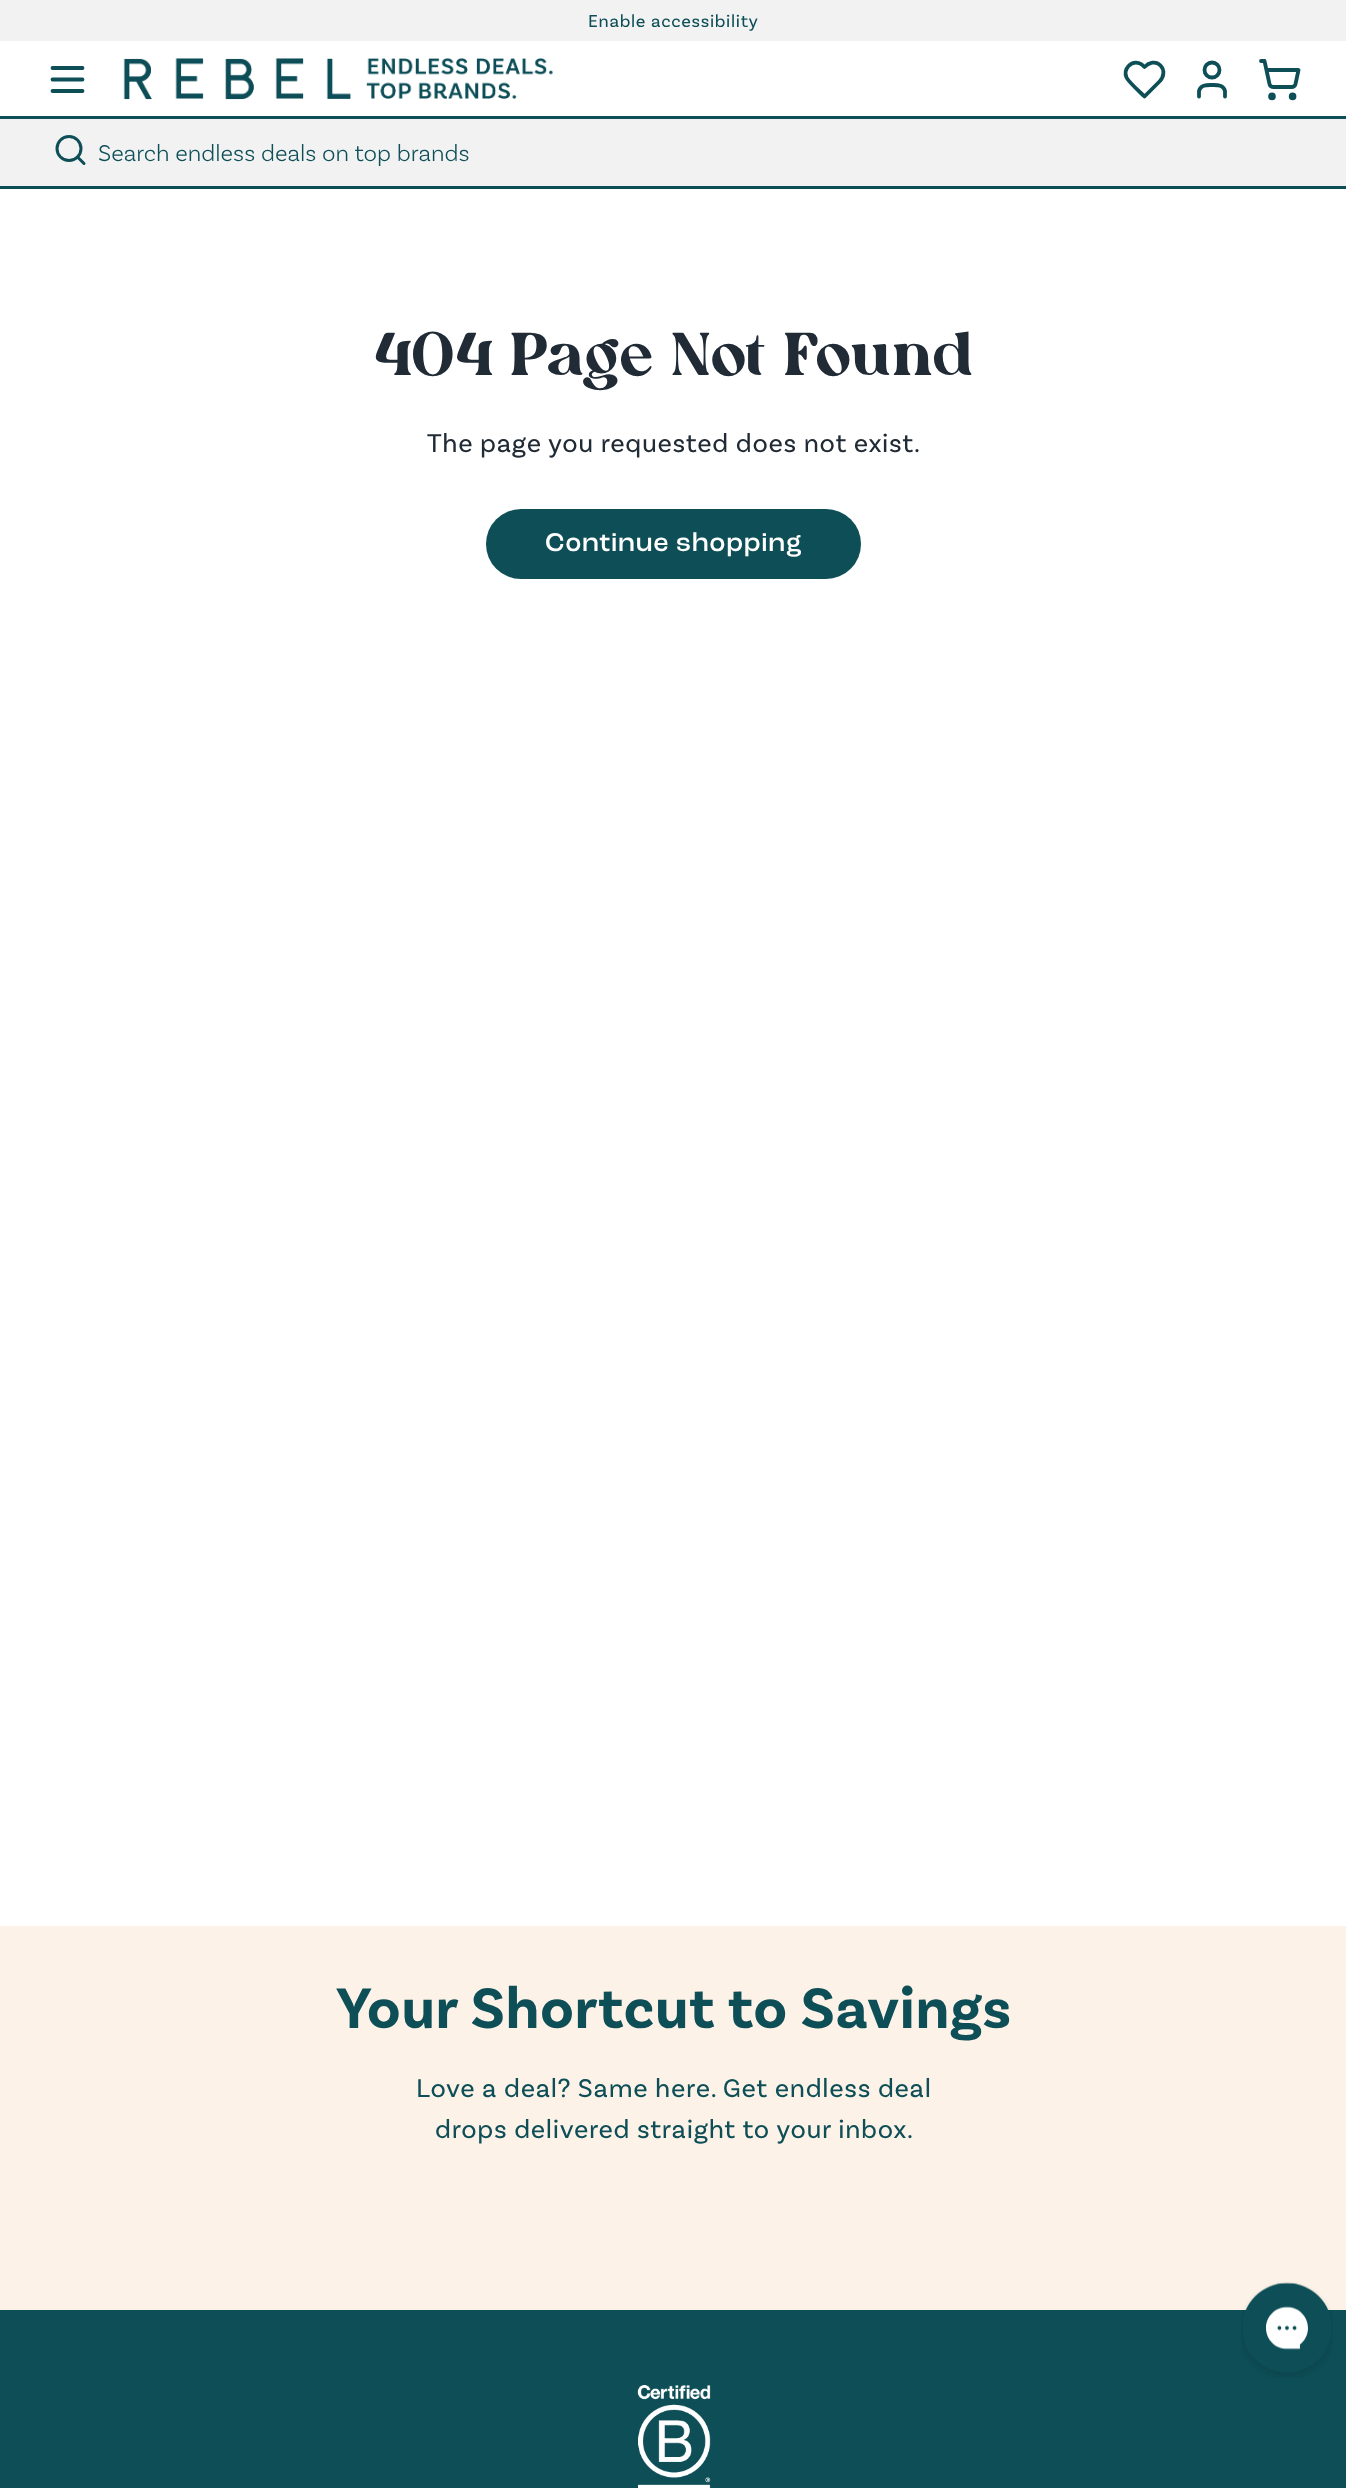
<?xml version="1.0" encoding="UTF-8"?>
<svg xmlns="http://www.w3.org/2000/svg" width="1346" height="2488">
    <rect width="100%" height="100%" fill="#FFFFFF"/>
    <rect x="0" y="186" width="1346" height="3" fill="#0D4E57"/>
    <rect x="0" y="0" width="1346" height="41" fill="#F2F2F2"/>
    <text x="588" y="27" font-family="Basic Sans" font-size="18" letter-spacing="0.7" fill="#0D4E57">Enable accessibility</text>
    <path d="M 52.5 79.5 H 82.5 M 52.5 68 H 82.5 M 52.5 91 H 82.5" fill="none" stroke="#0D4E57" stroke-width="3.8" stroke-linecap="round" stroke-linejoin="round"/>
    <image x="123" y="58" width="430" height="42" href="img_01.png"/>
    <path d="M 1160.5 65.5 C 1155.5 60.5 1149 62.5 1144.5 67 C 1143 65.5 1141.5 64 1140 63.5 C 1131 60 1123 69 1126.5 77.5 C 1129 82.5 1140 92 1144.5 96.5 L 1159.5 81.5 C 1164.5 76.5 1164.5 69.5 1160.5 65.5 Z" fill="none" stroke="#0D4E57" stroke-width="3.8" stroke-linecap="round" stroke-linejoin="round"/>
    <path d="M 1225 96.5 V 91 C 1223.5 84.5 1217 85 1212 85 C 1207 85 1200.5 84.5 1199 91 V 96.5" fill="none" stroke="#0D4E57" stroke-width="3.8" stroke-linecap="round" stroke-linejoin="round"/>
    <circle cx="1212" cy="70" r="7.5" fill="none" stroke="#0D4E57" stroke-width="3.8"/>
    <circle cx="1272" cy="96.4" r="1.9" fill="none" stroke="#0D4E57" stroke-width="3.8"/>
    <circle cx="1292.6" cy="96.4" r="1.9" fill="none" stroke="#0D4E57" stroke-width="3.8"/>
    <path d="M 1261 61 H 1264.5 L 1269.5 84 C 1270 86 1271.5 87 1273.5 87 H 1291.5 C 1293.5 87 1295 86 1295.5 84 L 1298.5 70 H 1266.5" fill="none" stroke="#0D4E57" stroke-width="3.8" stroke-linecap="round" stroke-linejoin="round"/>
    <rect x="0" y="119" width="1346" height="67" fill="#F2F2F2"/>
    <rect x="0" y="116" width="1346" height="3" fill="#0D4E57"/>
    <circle cx="69" cy="148.5" r="12" fill="none" stroke="#0D4E57" stroke-width="3"/>
    <path d="M 84 163.5 L 77.5 157" fill="none" stroke="#0D4E57" stroke-width="3" stroke-linecap="round" stroke-linejoin="round"/>
    <text x="98" y="161" font-family="Basic Sans" font-size="24" font-weight="300" fill="#0D4E57">Search endless deals on top brands</text>
    <text x="374" y="375" font-family="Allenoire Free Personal" font-size="60.25" letter-spacing="1.5" fill="#212B36">404 Page Not Found</text>
    <text x="427" y="452" font-family="Basic Sans" font-size="27" letter-spacing="0.7" fill="#212B36">The page you requested does not exist.</text>
    <rect x="486" y="509" width="375" height="70" rx="35" fill="#0D4E57"/>
    <text x="545" y="551" font-family="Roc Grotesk" font-size="27" font-weight="500" letter-spacing="0.7" fill="#FFFFFF">Continue shopping</text>
    <rect x="0" y="1926" width="1346" height="384" fill="#FDF2E8"/>
    <text x="336" y="2028" font-family="Basic Sans" font-size="60" font-weight="700" letter-spacing="0.7" fill="#0D4E57">Your Shortcut to Savings</text>
    <text x="416" y="2097" font-family="Basic Sans" font-size="27" letter-spacing="0.7" fill="#0D4E57">Love a deal? Same here. Get endless deal</text>
    <text x="435" y="2138" font-family="Basic Sans" font-size="27" letter-spacing="0.7" fill="#0D4E57">drops delivered straight to your inbox.</text>
    <rect x="0" y="2310" width="1346" height="178" fill="#0D4E57"/>
    <image x="637" y="2385" width="74" height="103" href="img_02.png"/>
    <image x="1241" y="2282" width="92" height="96" href="img_03.png"/>
</svg>
